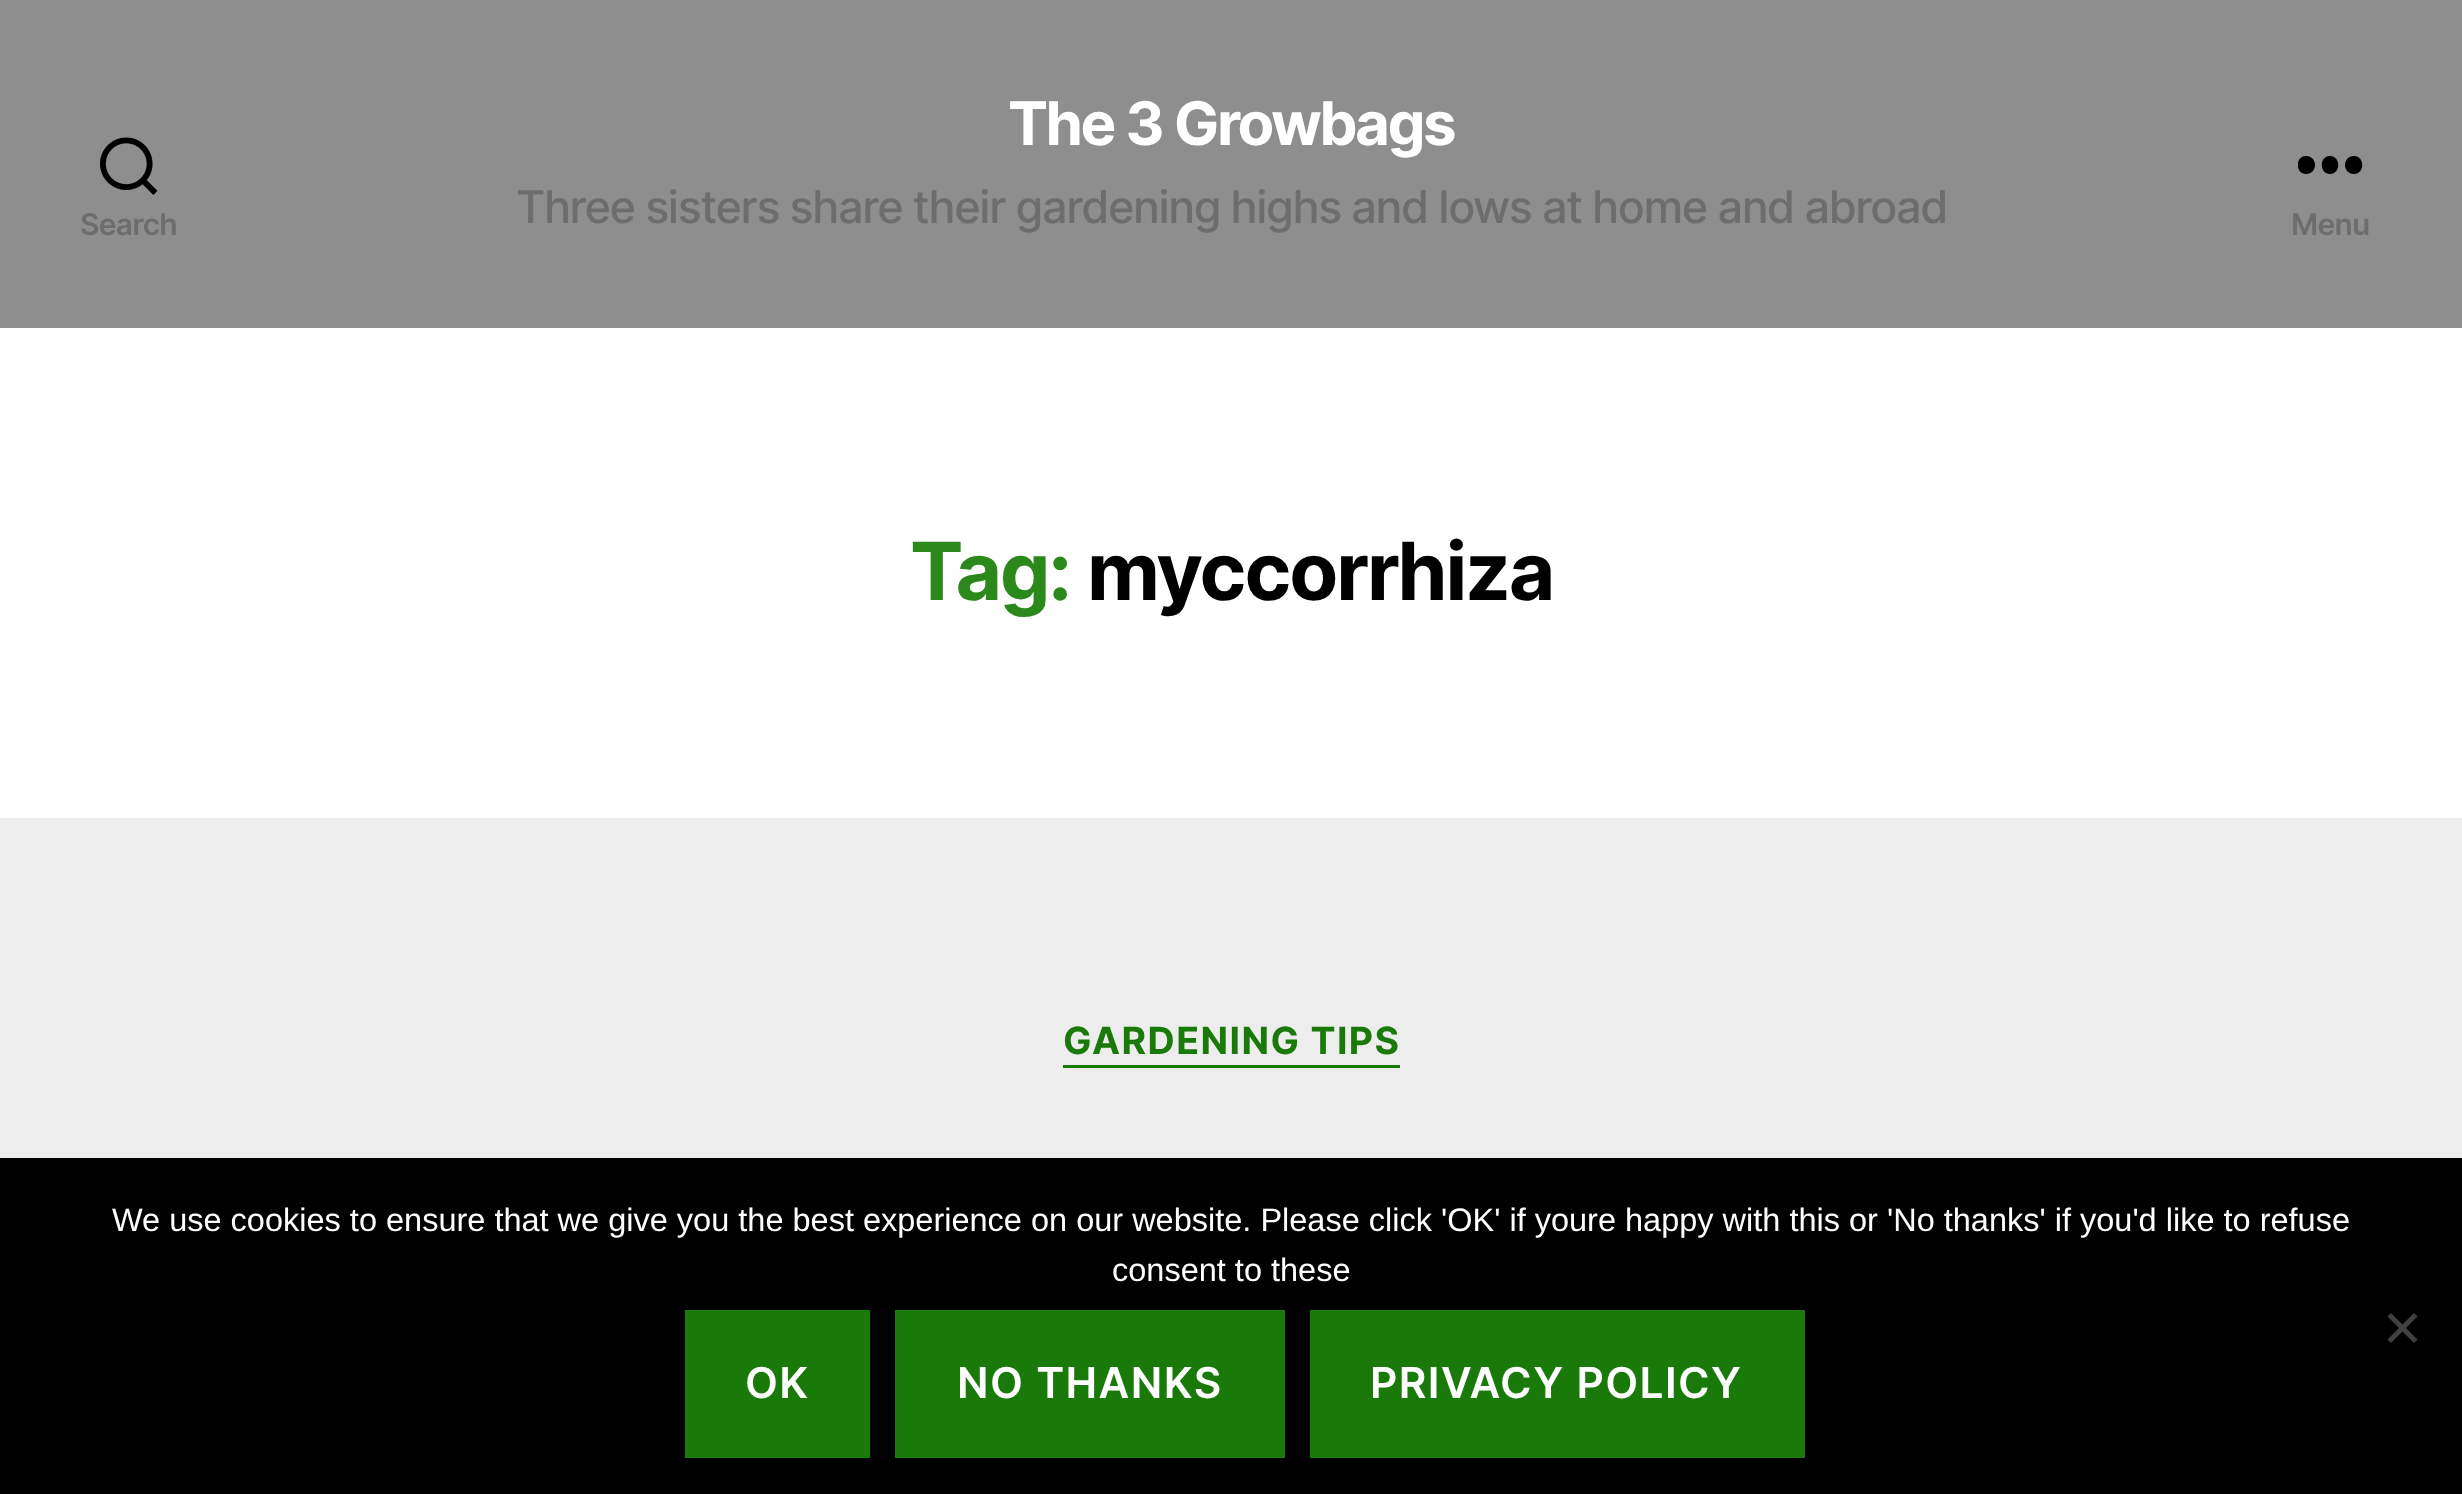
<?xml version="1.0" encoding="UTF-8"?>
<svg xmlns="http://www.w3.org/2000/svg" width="2462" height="1494">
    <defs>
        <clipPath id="clip1"><rect x="2298" y="155" width="65" height="20"/></clipPath>
    </defs>
    <rect width="100%" height="100%" fill="#EDEDED"/>
    <rect x="0" y="0" width="2462" height="328" fill="#8E8E8E"/>
    <image x="100" y="137" width="58" height="58" href="img_01.png"/>
    <text x="80" y="235" font-family="Inter" font-size="30" font-weight="600" letter-spacing="-0.75" fill="#6D6D6D">Search</text>
    <text x="1008" y="145" font-family="Inter" font-size="60" font-weight="700" letter-spacing="-2.5" fill="#FFFFFF">The 3 Growbags</text>
    <text x="516" y="223" font-family="Inter" font-size="45" font-weight="500" letter-spacing="-1.4" fill="#6D6D6D">Three sisters share their gardening highs and lows at home and abroad</text>
    <g clip-path="url(#clip1)">
        <path d="M 2306 174 C 2295 174 2295 156 2306 156 C 2318 156 2318 174 2306 174 Z M 2330 174 C 2319 174 2319 156 2330 156 C 2341 156 2341 174 2330 174 Z M 2354 174 C 2342 174 2342 156 2354 156 C 2365 156 2365 174 2354 174 Z" fill="#000000" fill-rule="evenodd"/>
    </g>
    <text x="2291" y="235" font-family="Inter" font-size="30" font-weight="600" letter-spacing="-0.75" fill="#6D6D6D">Menu</text>
    <rect x="0" y="328" width="2462" height="490" fill="#FFFFFF"/>
    <text x="910" y="600" font-family="Inter" font-size="80" font-weight="700" letter-spacing="-2.1" fill="#2B881A">Tag:</text>
    <text x="1087" y="600" font-family="Inter" font-size="80" font-weight="700" letter-spacing="-2.1" fill="#000000">myccorrhiza</text>
    <rect x="1063" y="1065" width="337" height="3" fill="#1A7A09"/>
    <text x="1063" y="1054" font-family="Inter" font-size="37.5" font-weight="700" letter-spacing="1.4" fill="#1A7A09">GARDENING TIPS</text>
    <rect x="0" y="1158" width="2462" height="336" fill="#000000"/>
    <text x="112" y="1231" font-family="Liberation Sans" font-size="32.5" fill="#FFFFFF">We use cookies to ensure that we give you the best experience on our website. Please click 'OK' if youre happy with this or 'No thanks' if you'd like to refuse</text>
    <text x="1112" y="1281" font-family="Liberation Sans" font-size="32.5" fill="#FFFFFF">consent to these</text>
    <path d="M 2414 1313 L 2417.5 1316.5 L 2391 1343 L 2387.5 1339.5 Z" fill="#404040"/>
    <path d="M 2387.5 1316.5 L 2391 1313 L 2417.5 1339.5 L 2414 1343 Z" fill="#404040"/>
    <rect x="685" y="1310" width="185" height="148" fill="#1A7A09"/>
    <text x="745" y="1398" font-family="Inter" font-size="42.5" font-weight="600" letter-spacing="1.4" fill="#FFFFFF">OK</text>
    <rect x="895" y="1310" width="390" height="148" fill="#1A7A09"/>
    <text x="957" y="1398" font-family="Inter" font-size="42.5" font-weight="600" letter-spacing="1.4" fill="#FFFFFF">NO THANKS</text>
    <rect x="1310" y="1310" width="495" height="148" fill="#1A7A09"/>
    <text x="1370" y="1398" font-family="Inter" font-size="42.5" font-weight="600" letter-spacing="1.4" fill="#FFFFFF">PRIVACY POLICY</text>
</svg>
